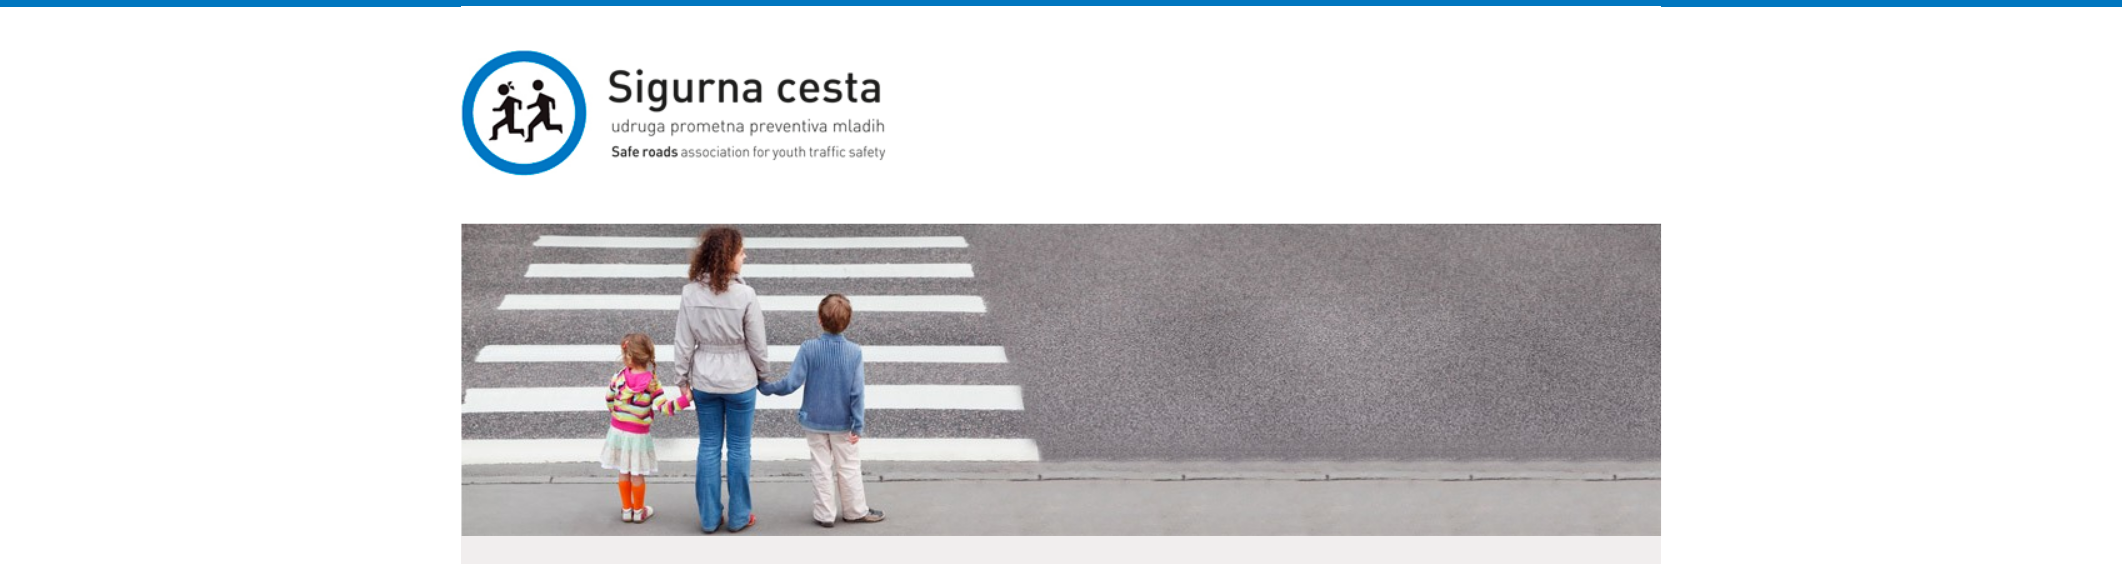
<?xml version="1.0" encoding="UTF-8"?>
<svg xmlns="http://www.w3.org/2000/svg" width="2122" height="564">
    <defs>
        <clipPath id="clip1"><rect x="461" y="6" width="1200" height="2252"/></clipPath>
        <filter id="blur1" x="-50%" y="-200%" width="200%" height="500%"><feGaussianBlur stdDeviation="2.5"/></filter>
    </defs>
    <rect width="100%" height="100%" fill="#FFFFFF"/>
    <rect x="0" y="0" width="2122" height="7" fill="#0076BF"/>
    <rect x="461" y="6" width="1200" height="1" fill="#FFFFFF"/>
    <image x="461" y="50" width="425" height="127" href="img_01.png"/>
    <image x="461" y="223" width="1201" height="313" href="img_02.png"/>
    <g clip-path="url(#clip1)">
        <rect x="461" y="538" width="1200" height="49" rx="15" fill="#D4D1D1" fill-opacity="0.83" filter="url(#blur1)"/>
    </g>
    <rect x="461" y="536" width="1200" height="28" fill="#F1EEEE"/>
</svg>
